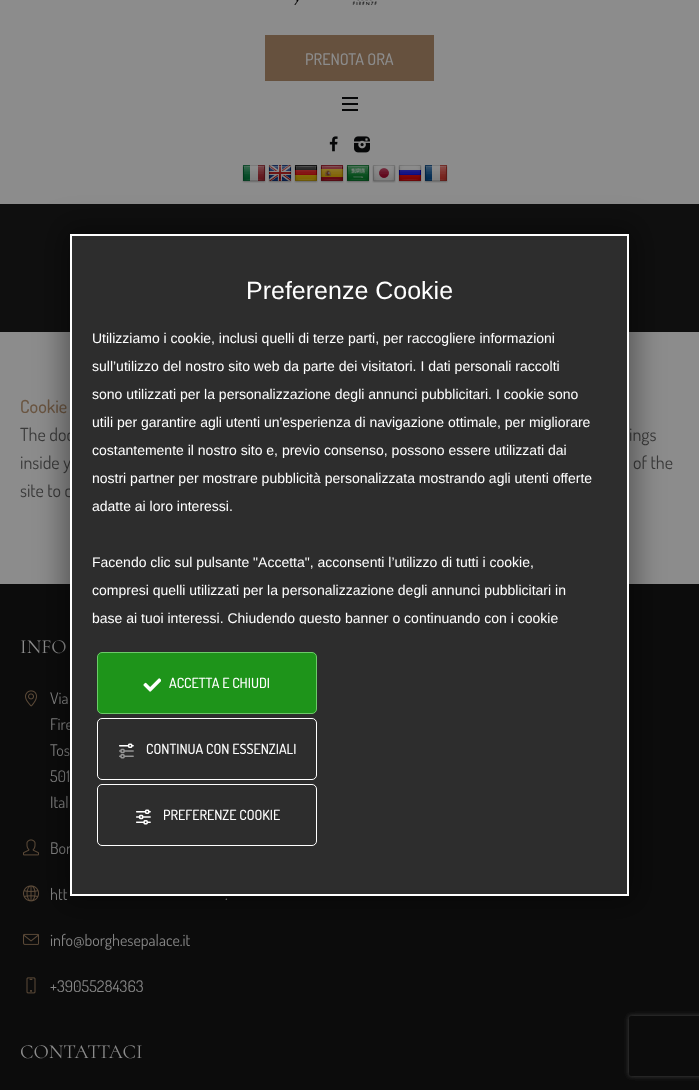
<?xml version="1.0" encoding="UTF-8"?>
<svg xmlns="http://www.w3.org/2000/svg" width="699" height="1090">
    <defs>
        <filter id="blur1" x="-50%" y="-200%" width="200%" height="500%"><feGaussianBlur stdDeviation="14.5"/></filter>
        <clipPath id="clip1"><rect x="92" y="324" width="515" height="300"/></clipPath>
        <clipPath id="clip2"><path d="M 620 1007 H 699 V 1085 H 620 Z M 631 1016 H 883 C 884 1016 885 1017 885 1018 V 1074 C 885 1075 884 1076 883 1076 H 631 C 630 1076 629 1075 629 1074 V 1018 C 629 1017 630 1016 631 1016 Z" clip-rule="evenodd"/></clipPath>
        <filter id="blur2" x="-50%" y="-200%" width="200%" height="500%"><feGaussianBlur stdDeviation="2.5"/></filter>
    </defs>
    <rect width="100%" height="100%" fill="#8C8C8C"/>
    <image x="294" y="0" width="83" height="5" href="img_01.png"/>
    <rect x="265" y="35" width="169" height="46" fill="#66513E"/>
    <text x="305" y="65" font-family="Dosis" font-size="16" font-weight="500" fill="#8C8C8C">PRENOTA ORA</text>
    <rect x="342" y="97" width="16" height="2" fill="#060708"/>
    <rect x="342" y="103" width="16" height="2" fill="#060708"/>
    <rect x="342" y="109" width="16" height="2" fill="#060708"/>
    <image x="329" y="136" width="9" height="16" href="img_02.png"/>
    <image x="354" y="136" width="16" height="17" href="img_03.png"/>
    <image x="242" y="165" width="24" height="18" href="img_04.png"/>
    <image x="268" y="165" width="24" height="18" href="img_05.png"/>
    <image x="294" y="165" width="24" height="18" href="img_06.png"/>
    <image x="320" y="165" width="24" height="18" href="img_07.png"/>
    <image x="346" y="165" width="24" height="18" href="img_08.png"/>
    <image x="372" y="165" width="24" height="18" href="img_09.png"/>
    <image x="398" y="165" width="24" height="18" href="img_10.png"/>
    <image x="424" y="165" width="24" height="18" href="img_11.png"/>
    <rect x="0" y="204" width="699" height="128" fill="#0F0F0F"/>
    <text x="20" y="413" font-family="Dosis" font-size="18" font-weight="500" fill="#6A5541">Cookie</text>
    <text x="20" y="441" font-family="Dosis" font-size="18" fill="#3A3A3A">The doc</text>
    <text x="629" y="441" font-family="Dosis" font-size="18" fill="#3A3A3A">ings</text>
    <text x="20" y="469" font-family="Dosis" font-size="18" fill="#3A3A3A">inside y</text>
    <text x="633" y="469" font-family="Dosis" font-size="18" fill="#3A3A3A">of the</text>
    <text x="20" y="497" font-family="Dosis" font-size="18" fill="#3A3A3A">site to c</text>
    <rect x="0" y="584" width="699" height="506" fill="#0C0C0C"/>
    <text x="20" y="653" font-family="Cormorant" font-size="20" font-weight="300" fill="#8C8C8C">INFO</text>
    <image x="25" y="690" width="12" height="17" href="img_12.png"/>
    <text font-family="Dosis" font-size="16" fill="#868686">
        <tspan x="50" y="704">Via</tspan>
        <tspan x="50" y="730">Fire</tspan>
        <tspan x="50" y="756">Tos</tspan>
        <tspan x="50" y="782">501</tspan>
        <tspan x="50" y="808">Ital</tspan>
    </text>
    <image x="23" y="839" width="16" height="17" href="img_13.png"/>
    <text x="50" y="854" font-family="Dosis" font-size="16" fill="#868686">Bor</text>
    <image x="23" y="885" width="17" height="17" href="img_14.png"/>
    <text x="50" y="900" font-family="Dosis" font-size="16" fill="#868686">htt</text>
    <text x="225" y="900" font-family="Dosis" font-size="16" fill="#868686">.</text>
    <image x="23" y="933" width="16" height="12" href="img_15.png"/>
    <text x="50" y="946" font-family="Dosis" font-size="16" fill="#868686">info@borghesepalace.it</text>
    <image x="26" y="977" width="10" height="17" href="img_16.png"/>
    <text x="50" y="992" font-family="Dosis" font-size="16" fill="#868686">+39055284363</text>
    <text x="20" y="1058" font-family="Cormorant" font-size="20" font-weight="300" fill="#8C8C8C">CONTATTACI</text>
    <rect x="63" y="227" width="573" height="676" fill="#000000" fill-opacity="0.38" filter="url(#blur1)"/>
    <rect x="71" y="235" width="557" height="660" fill="#2D2D2D" stroke="#FFFFFF" stroke-width="2"/>
    <text x="246" y="299" font-family="Liberation Sans" font-size="25" fill="#FFFFFF">Preferenze Cookie</text>
    <text x="92" y="343" font-family="Liberation Sans" font-size="14" fill="#FFFFFF">Utilizziamo i cookie, inclusi quelli di terze parti, per raccogliere informazioni</text>
    <text x="92" y="371" font-family="Liberation Sans" font-size="14" fill="#FFFFFF">sull’utilizzo del nostro sito web da parte dei visitatori. I dati personali raccolti</text>
    <text x="92" y="399" font-family="Liberation Sans" font-size="14" fill="#FFFFFF">sono utilizzati per la personalizzazione degli annunci pubblicitari. I cookie sono</text>
    <text x="92" y="427" font-family="Liberation Sans" font-size="14" fill="#FFFFFF">utili per garantire agli utenti un'esperienza di navigazione ottimale, per migliorare</text>
    <text x="92" y="455" font-family="Liberation Sans" font-size="14" fill="#FFFFFF">costantemente il nostro sito e, previo consenso, possono essere utilizzati dai</text>
    <text x="92" y="483" font-family="Liberation Sans" font-size="14" fill="#FFFFFF">nostri partner per mostrare pubblicità personalizzata mostrando agli utenti offerte</text>
    <text x="92" y="511" font-family="Liberation Sans" font-size="14" fill="#FFFFFF">adatte ai loro interessi.</text>
    <text x="92" y="567" font-family="Liberation Sans" font-size="14" fill="#FFFFFF">Facendo clic sul pulsante "Accetta", acconsenti l’utilizzo di tutti i cookie,</text>
    <text x="92" y="595" font-family="Liberation Sans" font-size="14" fill="#FFFFFF">compresi quelli utilizzati per la personalizzazione degli annunci pubblicitari in</text>
    <g clip-path="url(#clip1)">
        <text x="92" y="623" font-family="Liberation Sans" font-size="14" fill="#FFFFFF">base ai tuoi interessi. Chiudendo questo banner o continuando con i cookie</text>
    </g>
    <rect x="97.5" y="652.5" width="219" height="61" rx="4.5" fill="#1E941A" stroke="#6CCA69"/>
    <image x="143" y="678" width="18" height="14" href="img_17.png"/>
    <text x="169" y="688" font-family="Dosis" font-size="14" font-weight="500" fill="#FFFFFF">ACCETTA E CHIUDI</text>
    <rect x="97.5" y="718.5" width="219" height="61" rx="4.5" fill="none" stroke="#FFFFFF"/>
    <image x="119" y="743" width="15" height="16" href="img_18.png"/>
    <text x="146" y="754" font-family="Dosis" font-size="14" font-weight="500" fill="#FFFFFF">CONTINUA CON ESSENZIALI</text>
    <rect x="97.5" y="784.5" width="219" height="61" rx="4.5" fill="none" stroke="#FFFFFF"/>
    <image x="136" y="809" width="15" height="16" href="img_19.png"/>
    <text x="163" y="820" font-family="Dosis" font-size="14" font-weight="500" fill="#FFFFFF">PREFERENZE COOKIE</text>
    <g clip-path="url(#clip2)">
        <rect x="629" y="1016" width="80" height="60" rx="2" fill="#464646" filter="url(#blur2)"/>
    </g>
</svg>
